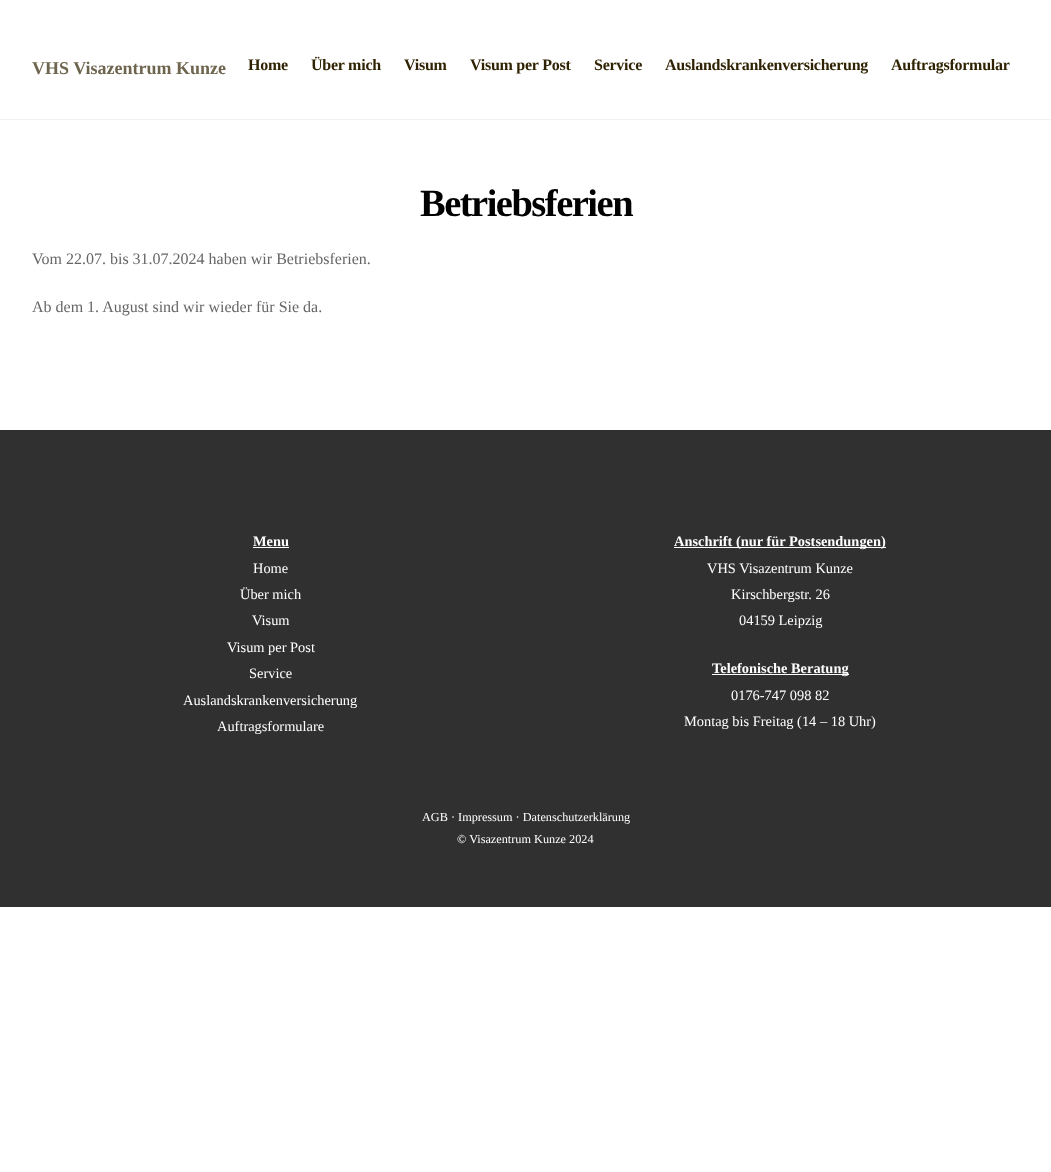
<?xml version="1.0" encoding="UTF-8"?>
<svg xmlns="http://www.w3.org/2000/svg" width="1051" height="1172">
    <rect width="100%" height="100%" fill="#FFFFFF"/>
    <rect x="0" y="119" width="1051" height="1" fill="#F2F2F2"/>
    <text x="32" y="74" font-family="Liberation Serif" font-size="18" font-weight="700" fill="#6E654F">VHS Visazentrum Kunze</text>
    <text x="248" y="70" font-family="Liberation Serif" font-size="16" font-weight="700" letter-spacing="-0.25" fill="#302303">Home</text>
    <text x="311" y="70" font-family="Liberation Serif" font-size="16" font-weight="700" letter-spacing="-0.25" fill="#302303">Über mich</text>
    <text x="404" y="70" font-family="Liberation Serif" font-size="16" font-weight="700" letter-spacing="-0.25" fill="#302303">Visum</text>
    <text x="470" y="70" font-family="Liberation Serif" font-size="16" font-weight="700" letter-spacing="-0.25" fill="#302303">Visum per Post</text>
    <text x="594" y="70" font-family="Liberation Serif" font-size="16" font-weight="700" letter-spacing="-0.25" fill="#302303">Service</text>
    <text x="665" y="70" font-family="Liberation Serif" font-size="16" font-weight="700" letter-spacing="-0.25" fill="#302303">Auslandskrankenversicherung</text>
    <text x="891" y="70" font-family="Liberation Serif" font-size="16" font-weight="700" letter-spacing="-0.25" fill="#302303">Auftragsformular</text>
    <text x="420" y="216" font-family="Liberation Serif" font-size="38.5" font-weight="700" letter-spacing="-1.5" fill="#000000">Betriebsferien</text>
    <text x="32" y="264" font-family="Liberation Serif" font-size="16" fill="#666666">Vom 22.07. bis 31.07.2024 haben wir Betriebsferien.</text>
    <text x="32" y="312" font-family="Liberation Serif" font-size="16" fill="#666666">Ab dem 1. August sind wir wieder für Sie da.</text>
    <rect x="0" y="431" width="1051" height="476" fill="#303030"/>
    <rect x="0" y="430" width="1051" height="1" fill="#2E2E2E"/>
    <text x="253" y="546" font-family="Liberation Serif" font-size="14.4" font-weight="700" fill="#FFFFFF">Menu</text>
    <rect x="253" y="547" width="36" height="1" fill="#FFFFFF"/>
    <text x="253" y="573" font-family="Liberation Serif" font-size="14.4" fill="#FFFFFF">Home</text>
    <text x="240" y="599" font-family="Liberation Serif" font-size="14.4" fill="#FFFFFF">Über mich</text>
    <text x="252" y="625" font-family="Liberation Serif" font-size="14.4" fill="#FFFFFF">Visum</text>
    <text x="227" y="652" font-family="Liberation Serif" font-size="14.4" fill="#FFFFFF">Visum per Post</text>
    <text x="249" y="678" font-family="Liberation Serif" font-size="14.4" fill="#FFFFFF">Service</text>
    <text x="183" y="705" font-family="Liberation Serif" font-size="14.4" fill="#FFFFFF">Auslandskrankenversicherung</text>
    <text x="217" y="731" font-family="Liberation Serif" font-size="14.4" fill="#FFFFFF">Auftragsformulare</text>
    <rect x="674" y="547" width="212" height="1" fill="#FFFFFF"/>
    <text x="674" y="546" font-family="Liberation Serif" font-size="14.4" font-weight="700" fill="#FFFFFF">Anschrift (nur für Postsendungen)</text>
    <text x="707" y="573" font-family="Liberation Serif" font-size="14.4" fill="#FFFFFF">VHS Visazentrum Kunze</text>
    <text x="731" y="599" font-family="Liberation Serif" font-size="14.4" fill="#FFFFFF">Kirschbergstr. 26</text>
    <text x="739" y="625" font-family="Liberation Serif" font-size="14.4" fill="#FFFFFF">04159 Leipzig</text>
    <rect x="712" y="674" width="137" height="1" fill="#FFFFFF"/>
    <text x="712" y="673" font-family="Liberation Serif" font-size="14.4" font-weight="700" fill="#FFFFFF">Telefonische Beratung</text>
    <text x="731" y="700" font-family="Liberation Serif" font-size="14.4" fill="#FFFFFF">0176-747 098 82</text>
    <text x="684" y="726" font-family="Liberation Serif" font-size="14.4" fill="#FFFFFF">Montag bis Freitag (14 – 18 Uhr)</text>
    <text x="422" y="821" font-family="Liberation Serif" font-size="12.25" fill="#FFFFFF">AGB · Impressum · Datenschutzerklärung</text>
    <text x="457" y="843" font-family="Liberation Serif" font-size="12.25" fill="#FFFFFF">© Visazentrum Kunze 2024</text>
</svg>
